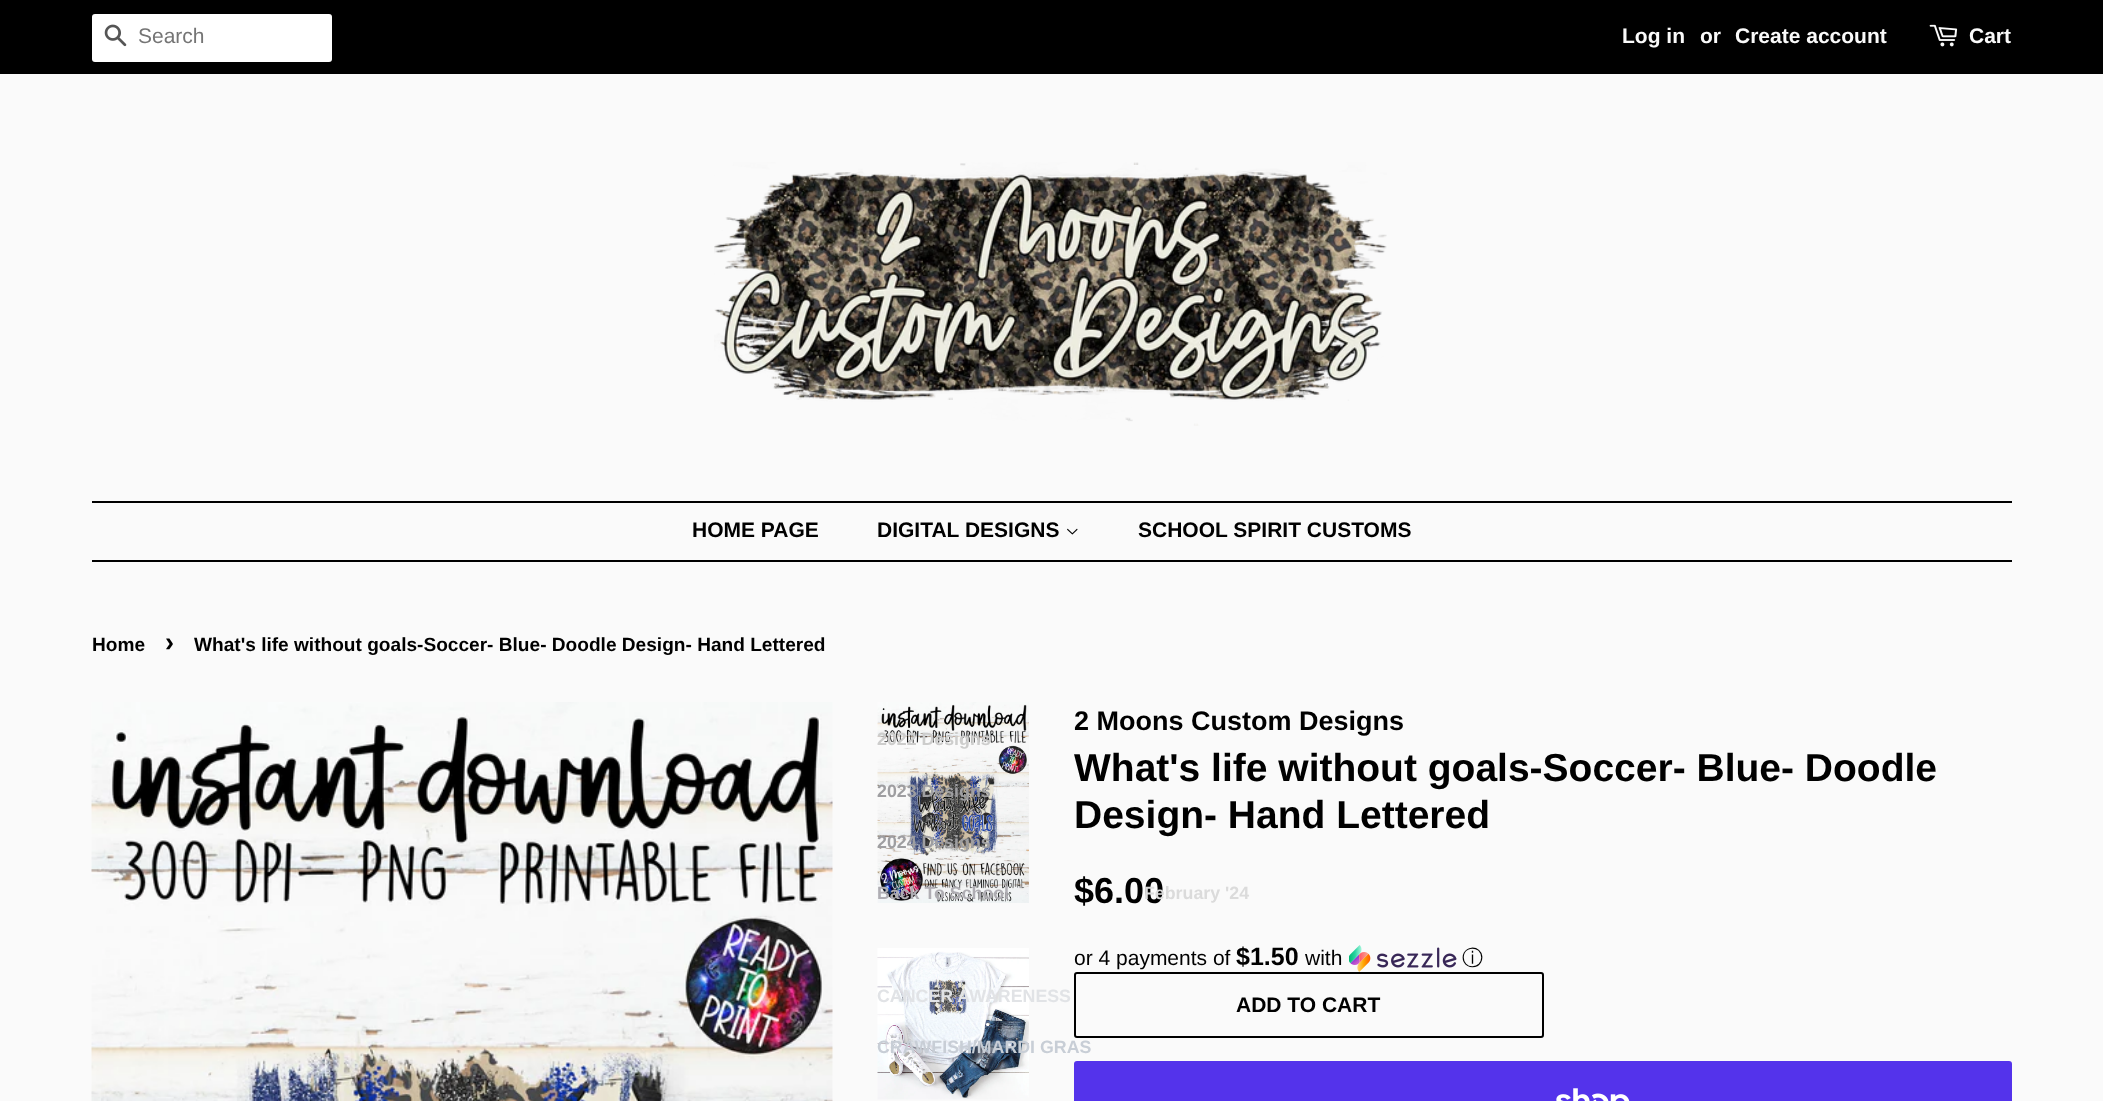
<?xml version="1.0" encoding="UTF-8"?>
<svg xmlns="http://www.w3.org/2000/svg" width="2103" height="1101">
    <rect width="100%" height="100%" fill="#FAFAFA"/>
    <rect x="0" y="0" width="2103" height="74" fill="#000000"/>
    <rect x="92" y="14" width="240" height="48" rx="3" fill="#FFFFFF"/>
    <image x="104" y="24" width="23" height="23" href="img_01.png"/>
    <text x="138" y="43" font-family="Liberation Sans" font-size="21" fill="#757575">Search</text>
    <text x="1622" y="43" font-family="Liberation Sans" font-size="21" font-weight="700" fill="#FAFAFA">Log in</text>
    <text x="1700" y="43" font-family="Liberation Sans" font-size="21" font-weight="700" fill="#FAFAFA">or</text>
    <text x="1735" y="43" font-family="Liberation Sans" font-size="21" font-weight="700" fill="#FAFAFA">Create account</text>
    <image x="1929" y="24" width="29" height="23" href="img_02.png"/>
    <text x="1969" y="43" font-family="Liberation Sans" font-size="21" font-weight="700" fill="#FAFAFA">Cart</text>
    <image x="714" y="162" width="673" height="264" href="img_03.png"/>
    <rect x="92" y="501" width="1920" height="2" fill="#000000"/>
    <rect x="92" y="560" width="1920" height="2" fill="#000000"/>
    <text x="692" y="537" font-family="Liberation Sans" font-size="21" font-weight="700" fill="#000000">HOME PAGE</text>
    <text x="877" y="537" font-family="Liberation Sans" font-size="21" font-weight="700" fill="#000000">DIGITAL DESIGNS</text>
    <image x="1067" y="528" width="11" height="7" href="img_04.png"/>
    <image x="877" y="702" width="152" height="201" href="img_06.png"/>
    <text x="877" y="745" font-family="Liberation Sans" font-size="17.8" font-weight="700" fill="#CDCDCC">2022 Designs</text>
    <text x="877" y="797" font-family="Liberation Sans" font-size="17.8" font-weight="700" fill="#9E9EA1">2023 Designs</text>
    <text x="877" y="848" font-family="Liberation Sans" font-size="17.8" font-weight="700" fill="#9E9EA1">2024 Designs</text>
    <text x="1074" y="903" font-family="Liberation Sans" font-size="36" font-weight="700" fill="#000000">$6.00</text>
    <text x="1144" y="899" font-family="Liberation Sans" font-size="17.8" font-weight="700" fill="#DBDBDB">February '24</text>
    <text x="877" y="899" font-family="Liberation Sans" font-size="17.8" font-weight="700" fill="#AFADB3">Back To School</text>
    <image x="877" y="948" width="152" height="152" href="img_07.png"/>
    <text x="877" y="1002" font-family="Liberation Sans" font-size="17.8" font-weight="700" fill="#E1E3E6">CANCER AWARENESS</text>
    <text x="877" y="1053" font-family="Liberation Sans" font-size="17.8" font-weight="700" fill="#C8CED6">CRAWFISH/MARDI GRAS</text>
    <text x="1138" y="537" font-family="Liberation Sans" font-size="21" font-weight="700" fill="#000000">SCHOOL SPIRIT CUSTOMS</text>
    <text x="92" y="651" font-family="Liberation Sans" font-size="19.1" font-weight="700" fill="#000000">Home</text>
    <text x="165" y="651" font-family="Liberation Sans" font-size="27" font-weight="700" fill="#000000">›</text>
    <text x="194" y="651" font-family="Liberation Sans" font-size="19.1" font-weight="700" fill="#000000">What's life without goals-Soccer- Blue- Doodle Design- Hand Lettered</text>
    <image x="91" y="702" width="742" height="399" href="img_05.png"/>
    <text x="1074" y="730" font-family="Liberation Sans" font-size="27" font-weight="700" fill="#000000">2 Moons Custom Designs</text>
    <text font-family="Liberation Sans" font-size="39" font-weight="700" fill="#000000">
        <tspan x="1074" y="781">What's life without goals-Soccer- Blue- Doodle</tspan>
        <tspan x="1074" y="828">Design- Hand Lettered</tspan>
    </text>
    <text x="1074" y="965" font-family="Liberation Sans" font-size="21" fill="#000000">or 4 payments of</text>
    <text x="1236" y="965" font-family="Liberation Sans" font-size="25" font-weight="700" fill="#000000">$1.50</text>
    <text x="1305" y="965" font-family="Liberation Sans" font-size="21" fill="#000000">with</text>
    <image x="1349" y="945" width="108" height="27" href="img_08.png"/>
    <text x="1462" y="965" font-family="WenQuanYi Zen Hei" font-size="21" font-weight="500" fill="#000000">ⓘ</text>
    <rect x="1075" y="973" width="468" height="64" rx="2" fill="none" stroke="#000000" stroke-width="2"/>
    <text x="1236" y="1012" font-family="Liberation Sans" font-size="21" font-weight="700" fill="#000000">ADD TO CART</text>
    <rect x="1074" y="1061" width="938" height="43" rx="3" fill="#5433EB"/>
    <image x="1556" y="1088" width="74" height="13" href="img_09.png"/>
</svg>
